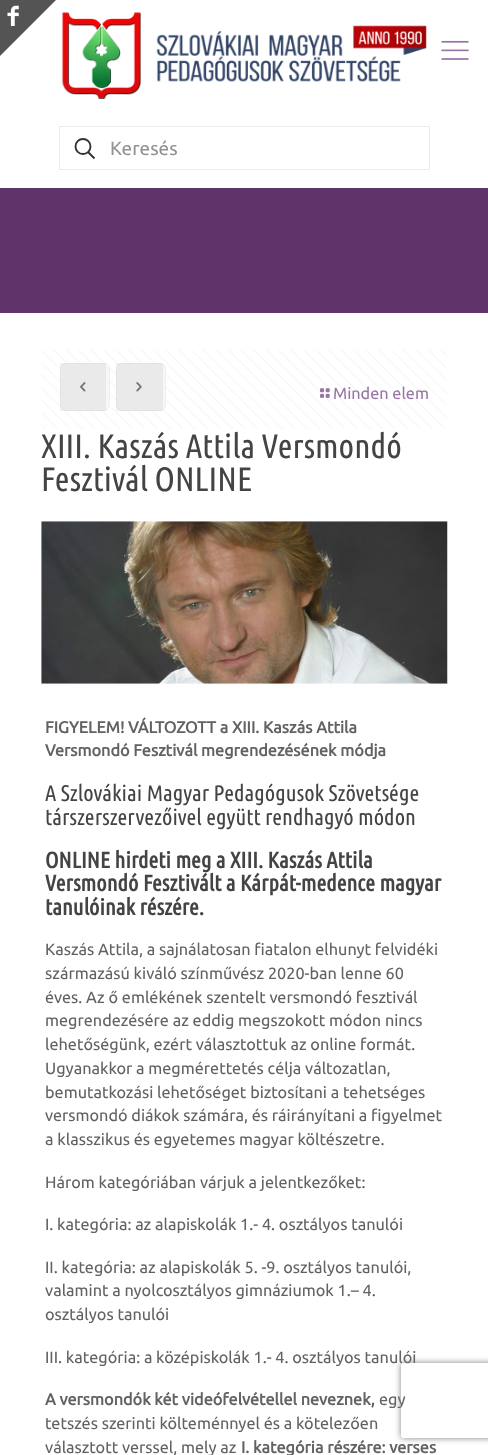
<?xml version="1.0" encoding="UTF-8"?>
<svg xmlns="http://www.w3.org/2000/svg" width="488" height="1455">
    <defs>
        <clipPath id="clip1"><path d="M 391 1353 H 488 V 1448 H 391 Z M 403.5 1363 H 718.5 C 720 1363 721 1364 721 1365.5 V 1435.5 C 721 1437 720 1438 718.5 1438 H 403.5 C 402 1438 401 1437 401 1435.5 V 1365.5 C 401 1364 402 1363 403.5 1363 Z" clip-rule="evenodd"/></clipPath>
        <filter id="blur1" x="-50%" y="-200%" width="200%" height="500%"><feGaussianBlur stdDeviation="3"/></filter>
    </defs>
    <rect width="100%" height="100%" fill="#FFFFFF"/>
    <path d="M 0 0 H 56 L 0 56 Z" fill="#545454"/>
    <image x="7" y="5" width="12" height="21" href="img_01.png"/>
    <rect x="0" y="188" width="488" height="125" fill="#5E346A"/>
    <image x="62" y="12" width="365" height="87" href="img_02.png"/>
    <image x="441" y="40" width="28" height="20" href="img_03.png"/>
    <rect x="59.5" y="126.5" width="370" height="43" fill="none" stroke="#EBEBEB"/>
    <circle cx="83" cy="146.5" r="7.5" fill="none" stroke="#333333" stroke-width="1.9"/>
    <path d="M 88 152 L 94.5 158.5" fill="none" stroke="#333333" stroke-width="1.9"/>
    <text x="110" y="155" font-family="Ubuntu" font-size="19" fill="#929292">Keresés</text>
    <image x="41" y="350" width="406" height="79" href="img_04.png"/>
    <rect x="60.5" y="363.5" width="49" height="47" rx="5.5" fill="#F7F7F7" stroke="#F0F0F0"/>
    <image x="80" y="382" width="6" height="10" href="img_05.png"/>
    <rect x="60" y="363" width="46" height="48" fill="#000000" fill-opacity="0.05"/>
    <rect x="116.5" y="363.5" width="49" height="47" rx="5.5" fill="#F7F7F7" stroke="#F0F0F0"/>
    <image x="136" y="382" width="6" height="10" href="img_06.png"/>
    <rect x="116" y="363" width="47" height="48" fill="#000000" fill-opacity="0.05"/>
    <image x="320" y="388" width="10" height="10" href="img_07.png"/>
    <text x="333" y="399" font-family="Ubuntu" font-size="16.25" fill="#9975A3">Minden elem</text>
    <text font-family="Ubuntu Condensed" font-size="33.75" fill="#444444">
        <tspan x="41" y="458">XIII. Kaszás Attila Versmondó</tspan>
        <tspan x="41" y="491">Fesztivál ONLINE</tspan>
    </text>
    <image x="41" y="521" width="407" height="163" href="img_08.png"/>
    <text font-family="Ubuntu" font-size="16.25" font-weight="700" fill="#626262">
        <tspan x="45" y="733">FIGYELEM! VÁLTOZOTT a XIII. Kaszás Attila</tspan>
        <tspan x="45" y="756">Versmondó Fesztivál megrendezésének módja</tspan>
    </text>
    <text font-family="Ubuntu Condensed" font-size="22.5" fill="#444444">
        <tspan x="45" y="801">A Szlovákiai Magyar Pedagógusok Szövetsége</tspan>
        <tspan x="45" y="825">társzerszervezőivel együtt rendhagyó módon</tspan>
    </text>
    <text font-family="Ubuntu Condensed" font-size="22.5" font-weight="700" fill="#444444">
        <tspan x="45" y="868">ONLINE hirdeti meg a XIII. Kaszás Attila</tspan>
        <tspan x="45" y="891">Versmondó Fesztivált a Kárpát-medence magyar</tspan>
        <tspan x="45" y="915">tanulóinak részére.</tspan>
    </text>
    <text font-family="Ubuntu" font-size="16.25" fill="#626262">
        <tspan x="45" y="955">Kaszás Attila, a sajnálatosan fiatalon elhunyt felvidéki</tspan>
        <tspan x="45" y="979">származású kiváló színművész 2020-ban lenne 60</tspan>
        <tspan x="45" y="1003">éves. Az ő emlékének szentelt versmondó fesztivál</tspan>
        <tspan x="45" y="1026">megrendezésére az eddig megszokott módon nincs</tspan>
        <tspan x="45" y="1050">lehetőségünk, ezért választottuk az online formát.</tspan>
        <tspan x="45" y="1074">Ugyanakkor a megmérettetés célja változatlan,</tspan>
        <tspan x="45" y="1098">bemutatkozási lehetőséget biztosítani a tehetséges</tspan>
        <tspan x="45" y="1121">versmondó diákok számára, és ráirányítani a figyelmet</tspan>
        <tspan x="45" y="1145">a klasszikus és egyetemes magyar költészetre.</tspan>
    </text>
    <text x="45" y="1188" font-family="Ubuntu" font-size="16.25" fill="#626262">Három kategóriában várjuk a jelentkezőket:</text>
    <text x="45" y="1230" font-family="Ubuntu" font-size="16.25" fill="#626262">I. kategória: az alapiskolák 1.- 4. osztályos tanulói</text>
    <text font-family="Ubuntu" font-size="16.25" fill="#626262">
        <tspan x="45" y="1273">II. kategória: az alapiskolák 5. -9. osztályos tanulói,</tspan>
        <tspan x="45" y="1296">valamint a nyolcosztályos gimnáziumok 1.– 4.</tspan>
        <tspan x="45" y="1320">osztályos tanulói</tspan>
    </text>
    <text x="45" y="1363" font-family="Ubuntu" font-size="16.25" fill="#626262">III. kategória: a középiskolák 1.- 4. osztályos tanulói</text>
    <text x="45" y="1405" font-family="Ubuntu" font-size="16.25" font-weight="700" fill="#626262">A versmondók két videófelvétellel neveznek,</text>
    <text x="379" y="1405" font-family="Ubuntu" font-size="16.25" fill="#626262">egy</text>
    <text font-family="Ubuntu" font-size="16.25" fill="#626262">
        <tspan x="45" y="1429">tetszés szerinti költeménnyel és a kötelezően</tspan>
        <tspan x="45" y="1453">választott verssel, mely az</tspan>
    </text>
    <text x="241" y="1453" font-family="Ubuntu" font-size="16.25" font-weight="700" fill="#626262">I. kategória részére: verses</text>
    <g clip-path="url(#clip1)">
        <rect x="401" y="1363" width="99" height="75" rx="2.5" fill="#808080" filter="url(#blur1)"/>
    </g>
</svg>
